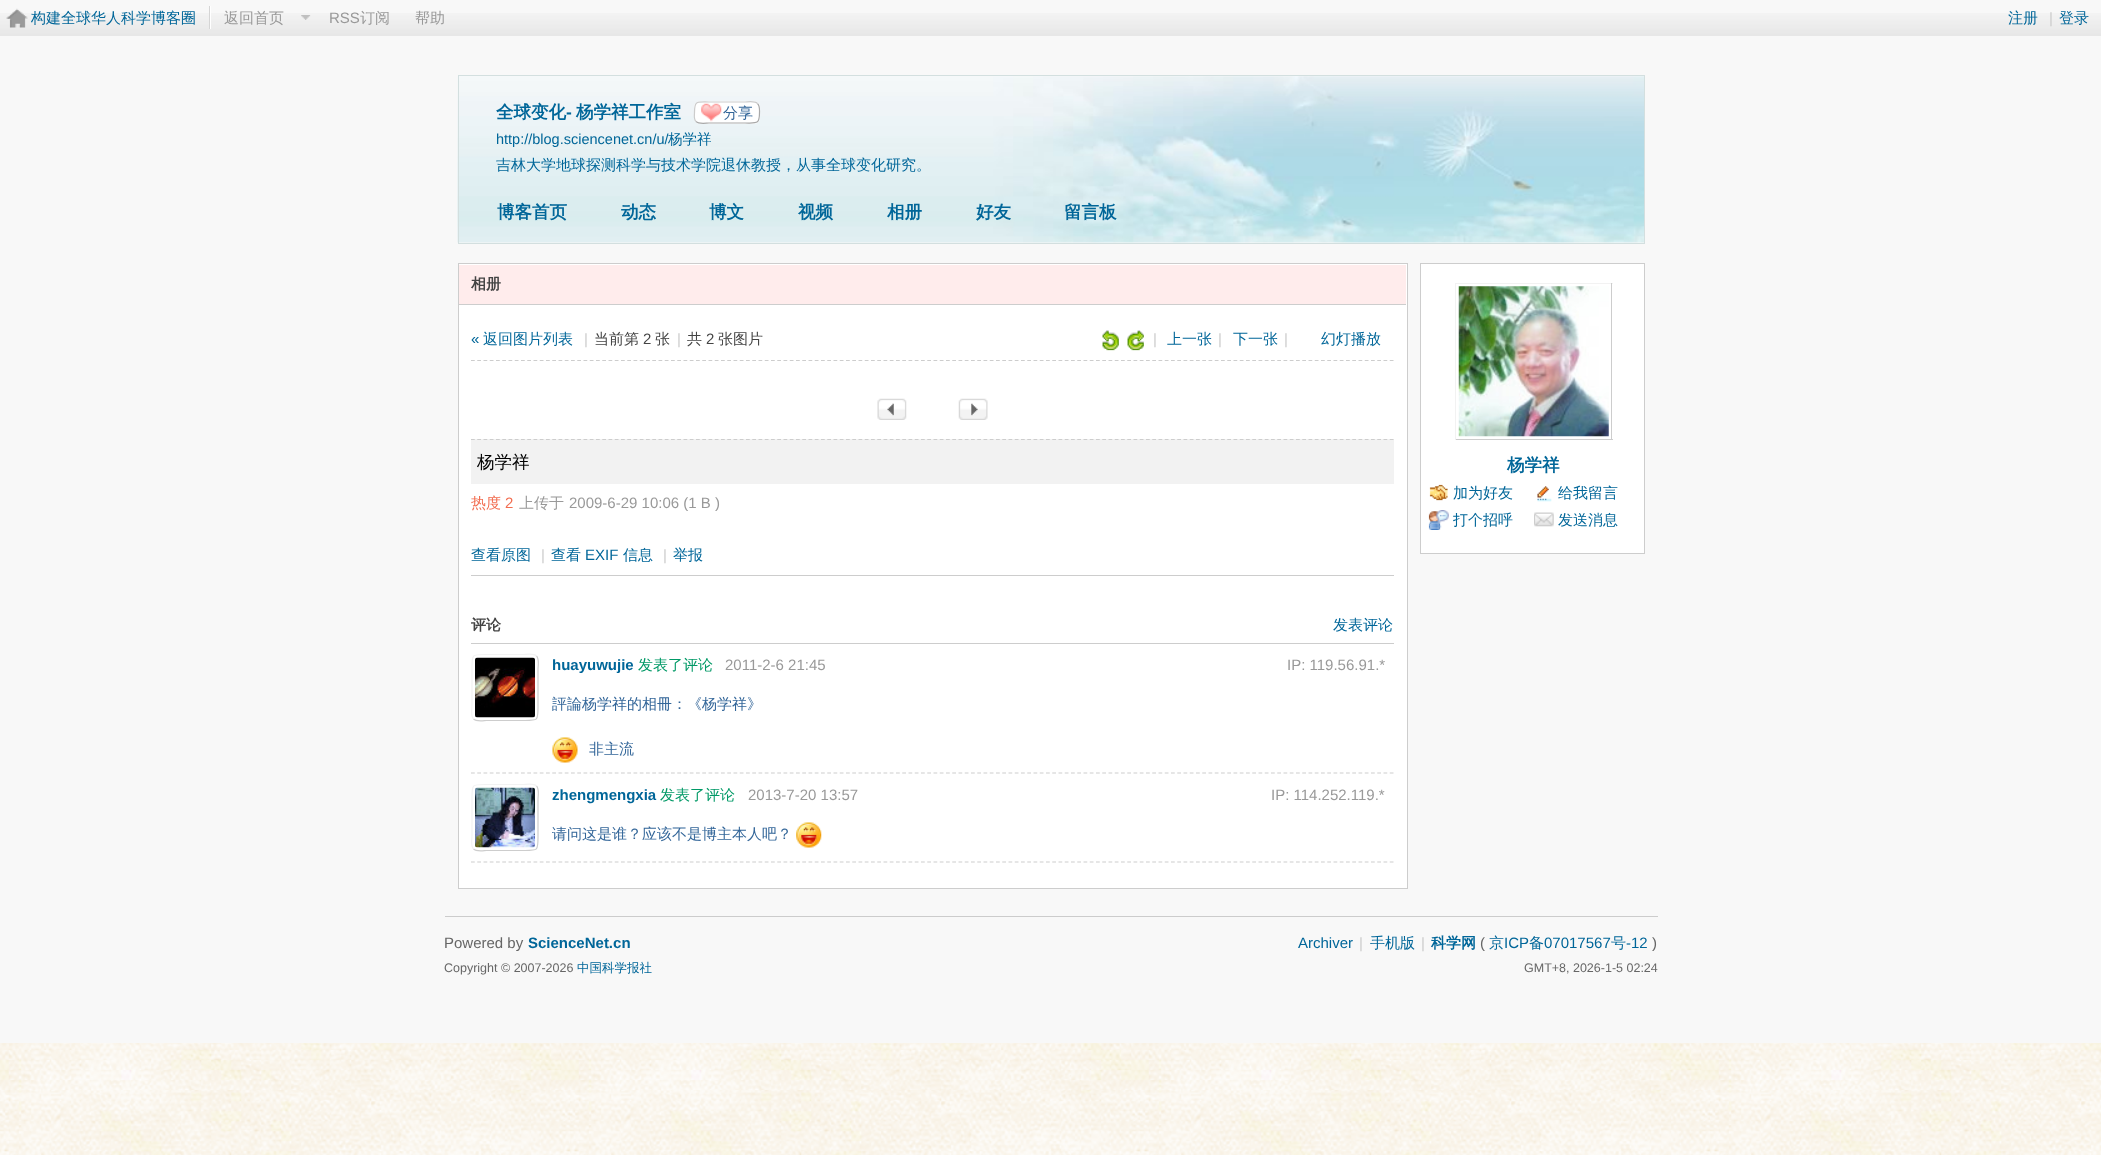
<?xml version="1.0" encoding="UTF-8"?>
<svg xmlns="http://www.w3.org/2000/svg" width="2101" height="1155">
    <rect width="100%" height="100%" fill="#FFFFFF"/>
    <image x="0" y="1043" width="2101" height="112" href="img_01.png"/>
    <rect x="0" y="0" width="2101" height="1043" fill="#F8F8F8"/>
    <image x="0" y="13" width="2101" height="23" href="img_02.png"/>
    <image x="6" y="8" width="22" height="20" href="img_03.png"/>
    <rect x="210" y="6" width="1" height="23" fill="#FFFFFF"/>
    <rect x="209" y="6" width="1" height="23" fill="#D5D5D5"/>
    <text x="31" y="23" font-family="WenQuanYi Zen Hei" font-size="15" font-weight="500" fill="#006699">构建全球华人科学博客圈</text>
    <text x="224" y="23" font-family="WenQuanYi Zen Hei" font-size="15" font-weight="500" fill="#999999">返回首页</text>
    <image x="301" y="15" width="10" height="5" href="img_04.png"/>
    <text x="329" y="23" font-family="Liberation Sans" font-size="15" fill="#999999">RSS</text>
    <text x="360" y="23" font-family="WenQuanYi Zen Hei" font-size="15" font-weight="500" fill="#999999">订阅</text>
    <text x="415" y="23" font-family="WenQuanYi Zen Hei" font-size="15" font-weight="500" fill="#999999">帮助</text>
    <text x="2008" y="23" font-family="WenQuanYi Zen Hei" font-size="15" font-weight="500" fill="#006699">注册</text>
    <text x="2049" y="23" font-family="Liberation Sans" font-size="15" fill="#CCCCCC">|</text>
    <text x="2059" y="23" font-family="WenQuanYi Zen Hei" font-size="15" font-weight="500" fill="#006699">登录</text>
    <image x="457" y="76" width="1187" height="167" href="img_05.png"/>
    <rect x="458.5" y="75.5" width="1186" height="168" fill="none" stroke="#D3DFDF"/>
    <text x="496" y="118" font-family="WenQuanYi Zen Hei" font-size="17.5" font-weight="700" fill="#006699">全球变化</text>
    <text x="566" y="118" font-family="Liberation Sans" font-size="17.5" font-weight="700" fill="#006699">-</text>
    <text x="576" y="118" font-family="WenQuanYi Zen Hei" font-size="17.5" font-weight="700" fill="#006699">杨学祥工作室</text>
    <rect x="694" y="101" width="66" height="23" rx="6" fill="#FFFFFF"/>
    <image x="701" y="103" width="21" height="19" href="img_06.png"/>
    <path d="M 757.5 103.5 C 760 106 759.5 109.5 759.5 112.5 C 759.5 124.5 757 123 745 123 H 709 C 706 123 699 124.5 696 121.5" fill="none" stroke="#A9A9A9" stroke-width="1.2"/>
    <path d="M 696 121.5 C 693.5 119 694.5 115.5 694.5 112.5 C 694.5 100.5 696.5 102 709 102 H 745 C 747.5 102 754.5 100.5 757.5 103.5" fill="none" stroke="#CCCCCC" stroke-width="1.2"/>
    <text x="723" y="118" font-family="WenQuanYi Zen Hei" font-size="15" font-weight="500" fill="#336699">分享</text>
    <text x="496" y="144" font-family="Liberation Sans" font-size="14.5" fill="#006699">http://blog.sciencenet.cn/u/</text>
    <text x="668" y="144" font-family="WenQuanYi Zen Hei" font-size="14.5" font-weight="500" fill="#006699">杨学祥</text>
    <text x="496" y="170" font-family="WenQuanYi Zen Hei" font-size="15" font-weight="500" fill="#006699">吉林大学地球探测科学与技术学院退休教授，从事全球变化研究。</text>
    <text x="497" y="218" font-family="WenQuanYi Zen Hei" font-size="17.5" font-weight="700" fill="#006699">博客首页</text>
    <text x="621" y="218" font-family="WenQuanYi Zen Hei" font-size="17.5" font-weight="700" fill="#006699">动态</text>
    <text x="709" y="218" font-family="WenQuanYi Zen Hei" font-size="17.5" font-weight="700" fill="#006699">博文</text>
    <text x="798" y="218" font-family="WenQuanYi Zen Hei" font-size="17.5" font-weight="700" fill="#006699">视频</text>
    <text x="887" y="218" font-family="WenQuanYi Zen Hei" font-size="17.5" font-weight="700" fill="#006699">相册</text>
    <text x="976" y="218" font-family="WenQuanYi Zen Hei" font-size="17.5" font-weight="700" fill="#006699">好友</text>
    <text x="1064" y="218" font-family="WenQuanYi Zen Hei" font-size="17.5" font-weight="700" fill="#006699">留言板</text>
    <rect x="458.5" y="263.5" width="949" height="625" fill="#FFFFFF" stroke="#CDCDCD"/>
    <rect x="459" y="265" width="947" height="39" fill="#FFECEC"/>
    <rect x="459" y="304" width="947" height="1" fill="#CDCDCD"/>
    <text x="471" y="289" font-family="WenQuanYi Zen Hei" font-size="15" font-weight="700" fill="#444444">相册</text>
    <path d="M 471 360.5 H 1394" fill="none" stroke="#CDCDCD" stroke-width="1.2" stroke-dasharray="3.75 2.5"/>
    <text x="471" y="344" font-family="Liberation Sans" font-size="15" fill="#006699">«</text>
    <text x="483" y="344" font-family="WenQuanYi Zen Hei" font-size="15" font-weight="500" fill="#006699">返回图片列表</text>
    <text x="584" y="344" font-family="Liberation Sans" font-size="15" fill="#CCCCCC">|</text>
    <text x="594" y="344" font-family="WenQuanYi Zen Hei" font-size="15" font-weight="500" fill="#444444">当前第</text>
    <text x="643" y="344" font-family="Liberation Sans" font-size="15" fill="#444444">2</text>
    <text x="655" y="344" font-family="WenQuanYi Zen Hei" font-size="15" font-weight="500" fill="#444444">张</text>
    <text x="677" y="344" font-family="Liberation Sans" font-size="15" fill="#CCCCCC">|</text>
    <text x="687" y="344" font-family="WenQuanYi Zen Hei" font-size="15" font-weight="500" fill="#444444">共</text>
    <text x="706" y="344" font-family="Liberation Sans" font-size="15" fill="#444444">2</text>
    <text x="718" y="344" font-family="WenQuanYi Zen Hei" font-size="15" font-weight="500" fill="#444444">张图片</text>
    <image x="1102" y="330" width="17" height="21" href="img_07.png"/>
    <image x="1127" y="330" width="17" height="21" href="img_08.png"/>
    <text x="1153" y="344" font-family="Liberation Sans" font-size="15" fill="#CCCCCC">|</text>
    <text x="1167" y="344" font-family="WenQuanYi Zen Hei" font-size="15" font-weight="500" fill="#006699">上一张</text>
    <text x="1218" y="344" font-family="Liberation Sans" font-size="15" fill="#CCCCCC">|</text>
    <text x="1233" y="344" font-family="WenQuanYi Zen Hei" font-size="15" font-weight="500" fill="#006699">下一张</text>
    <text x="1284" y="344" font-family="Liberation Sans" font-size="15" fill="#CCCCCC">|</text>
    <text x="1321" y="344" font-family="WenQuanYi Zen Hei" font-size="15" font-weight="500" fill="#006699">幻灯播放</text>
    <image x="877" y="398" width="30" height="22" href="img_09.png"/>
    <image x="958" y="398" width="30" height="22" href="img_10.png"/>
    <rect x="471" y="575" width="923" height="1" fill="#CDCDCD"/>
    <rect x="471" y="439" width="923" height="45" fill="#F2F2F2"/>
    <path d="M 471 439.5 H 1394" fill="none" stroke="#CDCDCD" stroke-width="1.2" stroke-dasharray="3.75 2.5"/>
    <text x="477" y="468" font-family="WenQuanYi Zen Hei" font-size="17.5" font-weight="500" fill="#000000">杨学祥</text>
    <text x="471" y="508" font-family="WenQuanYi Zen Hei" font-size="15" font-weight="500" fill="#F26C4F">热度</text>
    <text x="505" y="508" font-family="Liberation Sans" font-size="15" fill="#F26C4F">2</text>
    <text x="519" y="508" font-family="WenQuanYi Zen Hei" font-size="15" font-weight="500" fill="#999999">上传于</text>
    <text x="569" y="508" font-family="Liberation Sans" font-size="15" fill="#999999">2009-6-29 10:06 (1 B )</text>
    <text x="471" y="560" font-family="WenQuanYi Zen Hei" font-size="15" font-weight="500" fill="#006699">查看原图</text>
    <text x="541" y="560" font-family="Liberation Sans" font-size="15" fill="#CCCCCC">|</text>
    <text x="551" y="560" font-family="WenQuanYi Zen Hei" font-size="15" font-weight="500" fill="#006699">查看</text>
    <text x="585" y="560" font-family="Liberation Sans" font-size="15" fill="#006699">EXIF</text>
    <text x="623" y="560" font-family="WenQuanYi Zen Hei" font-size="15" font-weight="500" fill="#006699">信息</text>
    <text x="663" y="560" font-family="Liberation Sans" font-size="15" fill="#CCCCCC">|</text>
    <text x="673" y="560" font-family="WenQuanYi Zen Hei" font-size="15" font-weight="500" fill="#006699">举报</text>
    <rect x="471" y="643" width="923" height="1" fill="#CDCDCD"/>
    <text x="471" y="630" font-family="WenQuanYi Zen Hei" font-size="15" font-weight="700" fill="#444444">评论</text>
    <text x="1333" y="630" font-family="WenQuanYi Zen Hei" font-size="15" font-weight="500" fill="#006699">发表评论</text>
    <path d="M 471 773 H 1394" fill="none" stroke="#CDCDCD" stroke-width="1.2" stroke-dasharray="3.75 2.5"/>
    <path d="M 536.5 656 C 539.5 659 538 666.5 538 669 V 706 C 538 721 538.5 720.5 523.5 720.5 H 486.5 C 484 720.5 476.5 722 473.5 719" fill="none" stroke="#CDCDCD" stroke-width="1.2"/>
    <path d="M 473.5 719 C 470.5 716 472 708.5 472 706 V 669 C 472 654 471.5 654.5 486.5 654.5 H 523.5 C 526 654.5 533.5 653 536.5 656" fill="none" stroke="#F2F2F2" stroke-width="1.2"/>
    <image x="475" y="657" width="60" height="61" href="img_11.png"/>
    <text x="552" y="670" font-family="Liberation Sans" font-size="15" font-weight="700" fill="#006699">huayuwujie</text>
    <text x="638" y="670" font-family="WenQuanYi Zen Hei" font-size="15" font-weight="500" fill="#009966">发表了评论</text>
    <text x="725" y="670" font-family="Liberation Sans" font-size="15" fill="#999999">2011-2-6 21:45</text>
    <text x="1287" y="670" font-family="Liberation Sans" font-size="15" fill="#999999">IP: 119.56.91.*</text>
    <text x="552" y="709" font-family="WenQuanYi Zen Hei" font-size="15" font-weight="500" fill="#336699">評論杨学祥的相冊：《杨学祥》</text>
    <image x="552" y="737" width="26" height="26" href="img_12.png"/>
    <text x="589" y="754" font-family="WenQuanYi Zen Hei" font-size="15" font-weight="500" fill="#336699">非主流</text>
    <path d="M 471 862 H 1394" fill="none" stroke="#CDCDCD" stroke-width="1.2" stroke-dasharray="3.75 2.5"/>
    <path d="M 536.5 786 C 539.5 789 538 796.5 538 799 V 836 C 538 851 538.5 850.5 523.5 850.5 H 486.5 C 484 850.5 476.5 852 473.5 849" fill="none" stroke="#CDCDCD" stroke-width="1.2"/>
    <path d="M 473.5 849 C 470.5 846 472 838.5 472 836 V 799 C 472 784 471.5 784.5 486.5 784.5 H 523.5 C 526 784.5 533.5 783 536.5 786" fill="none" stroke="#F2F2F2" stroke-width="1.2"/>
    <image x="475" y="787" width="60" height="61" href="img_13.png"/>
    <text x="552" y="800" font-family="Liberation Sans" font-size="15" font-weight="700" fill="#006699">zhengmengxia</text>
    <text x="660" y="800" font-family="WenQuanYi Zen Hei" font-size="15" font-weight="500" fill="#009966">发表了评论</text>
    <text x="748" y="800" font-family="Liberation Sans" font-size="15" fill="#999999">2013-7-20 13:57</text>
    <text x="1271" y="800" font-family="Liberation Sans" font-size="15" fill="#999999">IP: 114.252.119.*</text>
    <text x="552" y="839" font-family="WenQuanYi Zen Hei" font-size="15" font-weight="500" fill="#336699">请问这是谁？应该不是博主本人吧？</text>
    <image x="796" y="822" width="26" height="26" href="img_14.png"/>
    <rect x="1420.5" y="263.5" width="224" height="290" fill="#FFFFFF" stroke="#CDCDCD"/>
    <rect x="1455" y="283" width="158" height="1" fill="#F2F2F2"/>
    <rect x="1611" y="283" width="1" height="157" fill="#CDCDCD"/>
    <rect x="1455" y="439" width="158" height="1" fill="#CDCDCD"/>
    <rect x="1455" y="283" width="1" height="157" fill="#F2F2F2"/>
    <image x="1458" y="286" width="151" height="151" href="img_15.png"/>
    <text x="1507" y="471" font-family="WenQuanYi Zen Hei" font-size="17.5" font-weight="700" fill="#006699">杨学祥</text>
    <image x="1429" y="484" width="19" height="17" href="img_16.png"/>
    <text x="1453" y="498" font-family="WenQuanYi Zen Hei" font-size="15" font-weight="500" fill="#006699">加为好友</text>
    <image x="1537" y="486" width="15" height="16" href="img_17.png"/>
    <text x="1558" y="498" font-family="WenQuanYi Zen Hei" font-size="15" font-weight="500" fill="#006699">给我留言</text>
    <image x="1428" y="510" width="21" height="20" href="img_18.png"/>
    <text x="1453" y="525" font-family="WenQuanYi Zen Hei" font-size="15" font-weight="500" fill="#006699">打个招呼</text>
    <image x="1534" y="512" width="20" height="15" href="img_19.png"/>
    <text x="1558" y="525" font-family="WenQuanYi Zen Hei" font-size="15" font-weight="500" fill="#006699">发送消息</text>
    <rect x="445" y="916" width="1213" height="1" fill="#CCCCCC"/>
    <text x="444" y="948" font-family="Liberation Sans" font-size="15" fill="#666666">Powered by</text>
    <text x="528" y="948" font-family="Liberation Sans" font-size="15" font-weight="700" fill="#006699">ScienceNet.cn</text>
    <text x="444" y="972" font-family="Liberation Sans" font-size="12.5" fill="#666666">Copyright © 2007-2026</text>
    <text x="577" y="972" font-family="WenQuanYi Zen Hei" font-size="12.5" font-weight="500" fill="#006699">中国科学报社</text>
    <text x="1298" y="948" font-family="Liberation Sans" font-size="15" fill="#006699">Archiver</text>
    <text x="1359" y="948" font-family="Liberation Sans" font-size="15" fill="#CCCCCC">|</text>
    <text x="1370" y="948" font-family="WenQuanYi Zen Hei" font-size="15" font-weight="500" fill="#006699">手机版</text>
    <text x="1421" y="948" font-family="Liberation Sans" font-size="15" fill="#CCCCCC">|</text>
    <text x="1431" y="948" font-family="WenQuanYi Zen Hei" font-size="15" font-weight="700" fill="#006699">科学网</text>
    <text x="1480" y="948" font-family="Liberation Sans" font-size="15" fill="#666666">(</text>
    <text x="1489" y="948" font-family="WenQuanYi Zen Hei" font-size="15" font-weight="500" fill="#006699">京</text>
    <text x="1504" y="948" font-family="Liberation Sans" font-size="15" fill="#006699">ICP</text>
    <text x="1529" y="948" font-family="WenQuanYi Zen Hei" font-size="15" font-weight="500" fill="#006699">备</text>
    <text x="1544" y="948" font-family="Liberation Sans" font-size="15" fill="#006699">07017567</text>
    <text x="1611" y="948" font-family="WenQuanYi Zen Hei" font-size="15" font-weight="500" fill="#006699">号</text>
    <text x="1626" y="948" font-family="Liberation Sans" font-size="15" fill="#006699">-12</text>
    <text x="1652" y="948" font-family="Liberation Sans" font-size="15" fill="#666666">)</text>
    <text x="1524" y="972" font-family="Liberation Sans" font-size="12.5" fill="#666666">GMT+8, 2026-1-5 02:24</text>
</svg>
